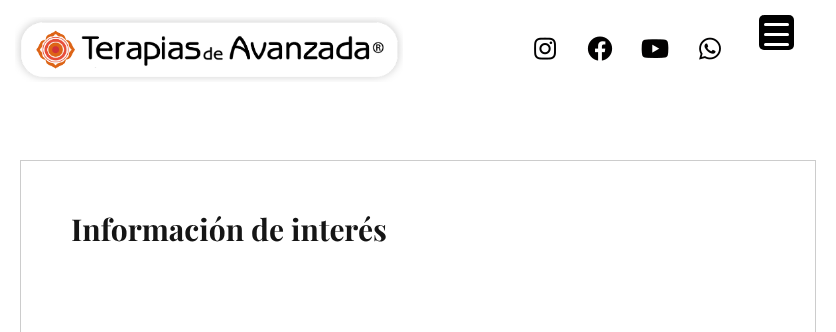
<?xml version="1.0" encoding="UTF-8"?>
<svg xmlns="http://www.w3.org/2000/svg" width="836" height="332">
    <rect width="100%" height="100%" fill="#FFFFFF"/>
    <rect x="759" y="15" width="35" height="35" rx="5" fill="#000000"/>
    <rect x="764" y="33" width="25" height="3" rx="1.5" fill="#FFFFFF"/>
    <rect x="764" y="23" width="25" height="3" rx="1.5" fill="#FFFFFF"/>
    <rect x="764" y="43" width="25" height="3" rx="1.5" fill="#FFFFFF"/>
    <image x="15" y="17" width="388" height="65" href="img_01.png"/>
    <image x="534" y="37" width="22" height="23" href="img_02.png"/>
    <image x="587" y="36" width="26" height="25" href="img_03.png"/>
    <image x="641" y="39" width="28" height="19" href="img_04.png"/>
    <image x="699" y="37" width="22" height="23" href="img_05.png"/>
    <rect x="20.5" y="160.5" width="795" height="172" fill="none" stroke="#CCCCCC"/>
    <text x="71" y="241" font-family="Playfair Display" font-size="30" font-weight="700" fill="#151515">Información de interés</text>
</svg>
